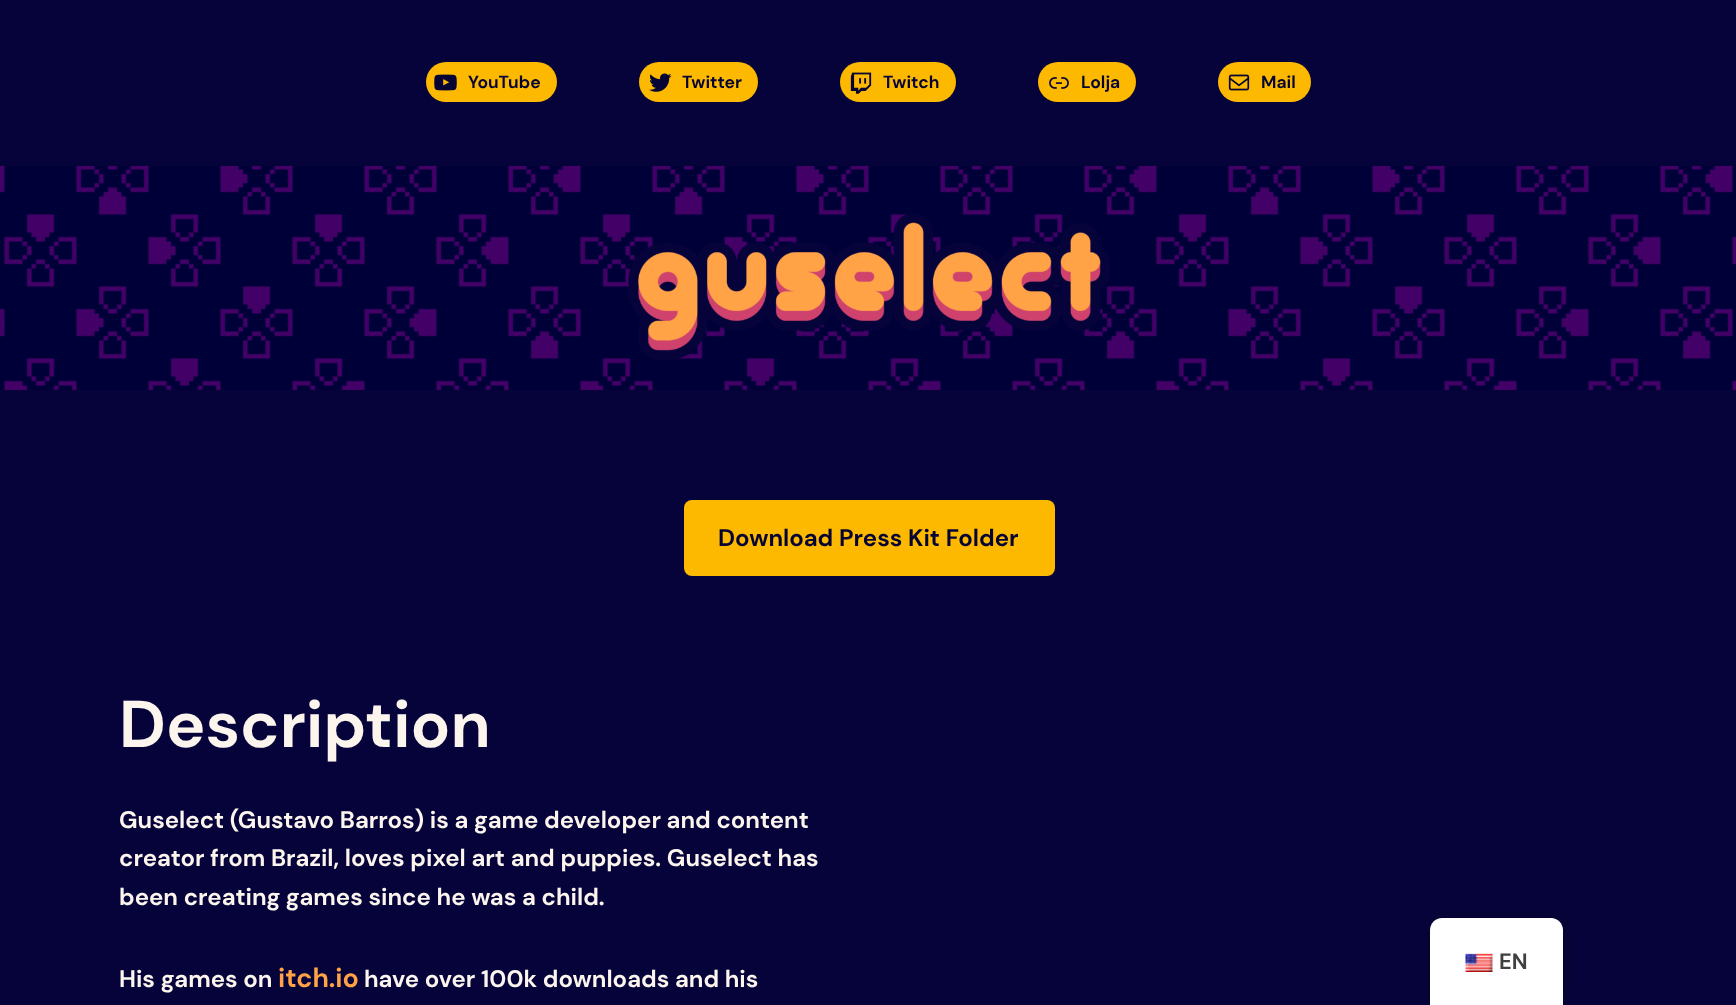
<?xml version="1.0" encoding="UTF-8"?>
<svg xmlns="http://www.w3.org/2000/svg" width="1736" height="1005">
    <defs>
        <filter id="blur1" x="-50%" y="-200%" width="200%" height="500%"><feGaussianBlur stdDeviation="6"/></filter>
    </defs>
    <rect width="100%" height="100%" fill="#06033A"/>
    <rect x="426" y="62" width="131" height="40" rx="20" fill="#FCB900"/>
    <image x="434" y="74" width="23" height="17" href="img_01.png"/>
    <text x="468" y="88" font-family="DM Sans" font-size="17.5" font-weight="700" fill="#050435">YouTube</text>
    <rect x="639" y="62" width="119" height="40" rx="20" fill="#FCB900"/>
    <image x="649" y="73" width="23" height="19" href="img_02.png"/>
    <text x="682" y="88" font-family="DM Sans" font-size="17.5" font-weight="700" fill="#050435">Twitter</text>
    <rect x="840" y="62" width="116" height="40" rx="20" fill="#FCB900"/>
    <image x="850" y="72" width="22" height="22" href="img_03.png"/>
    <text x="883" y="88" font-family="DM Sans" font-size="17.5" font-weight="700" fill="#050435">Twitch</text>
    <rect x="1038" y="62" width="98" height="40" rx="20" fill="#FCB900"/>
    <image x="1049" y="77" width="20" height="12" href="img_04.png"/>
    <text x="1081" y="88" font-family="DM Sans" font-size="17.5" font-weight="700" fill="#050435">Lolja</text>
    <rect x="1218" y="62" width="93" height="40" rx="20" fill="#FCB900"/>
    <image x="1228" y="74" width="22" height="17" href="img_05.png"/>
    <text x="1261" y="88" font-family="DM Sans" font-size="17.5" font-weight="700" fill="#050435">Mail</text>
    <image x="0" y="166" width="1736" height="224" href="img_06.png"/>
    <image x="628" y="213" width="482" height="147" href="img_07.png"/>
    <rect x="684" y="500" width="371" height="76" rx="8" fill="#FCB900"/>
    <text x="718" y="546" font-family="DM Sans" font-size="24" font-weight="700" fill="#050435">Download Press Kit Folder</text>
    <text x="119" y="747" font-family="DM Sans" font-size="66" font-weight="700" fill="#FCF5ED">Description</text>
    <text font-family="DM Sans" font-size="24" font-weight="700" fill="#FCF5ED">
        <tspan x="119" y="828">Guselect (Gustavo Barros) is a game developer and content</tspan>
        <tspan x="119" y="866">creator from Brazil, loves pixel art and puppies. Guselect has</tspan>
        <tspan x="119" y="905">been creating games since he was a child.</tspan>
    </text>
    <text x="119" y="987" font-family="DM Sans" font-size="24" font-weight="700" fill="#FCF5ED">His games on</text>
    <text x="278" y="987" font-family="DM Sans" font-size="27" font-weight="700" fill="#FFA346">itch.io</text>
    <text x="364" y="987" font-family="DM Sans" font-size="24" font-weight="700" fill="#FCF5ED">have over 100k downloads and his</text>
    <rect x="1430" y="918" width="133" height="87" rx="12" fill="#000000" fill-opacity="0.25" filter="url(#blur1)"/>
    <path d="M 1442 918 H 1551 C 1557.5 918 1563 923.5 1563 930 V 1005 H 1430 V 930 C 1430 923.5 1435.5 918 1442 918 Z" fill="#FFFFFF"/>
    <image x="1465" y="953" width="28" height="19" href="img_08.png"/>
    <text x="1499" y="969" font-family="DM Sans" font-size="22" font-weight="700" fill="#404040">EN</text>
</svg>
